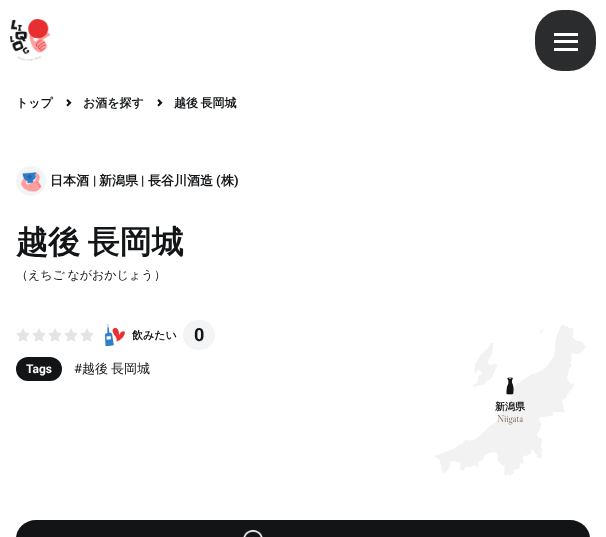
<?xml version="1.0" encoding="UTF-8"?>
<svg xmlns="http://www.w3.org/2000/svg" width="606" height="537">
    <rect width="100%" height="100%" fill="#FFFFFF"/>
    <image x="10" y="19" width="40" height="42" href="img_01.png"/>
    <rect x="535" y="10" width="61" height="61" rx="27" fill="#2A2C2D"/>
    <rect x="554" y="33" width="24" height="3" fill="#FFFFFF"/>
    <rect x="554" y="40" width="24" height="3" fill="#FFFFFF"/>
    <rect x="554" y="48" width="24" height="3" fill="#FFFFFF"/>
    <text x="16" y="107" font-family="WenQuanYi Zen Hei" font-size="12" font-weight="700" fill="#121416">トップ</text>
    <image x="66" y="99" width="6" height="8" href="img_02.png"/>
    <text x="83" y="107" font-family="WenQuanYi Zen Hei" font-size="12" font-weight="700" fill="#121416">お酒を探す</text>
    <image x="157" y="99" width="6" height="8" href="img_02.png"/>
    <text x="174" y="107" word-spacing="-1" font-family="WenQuanYi Zen Hei" font-size="12" font-weight="700" fill="#121416">越後 長岡城</text>
    <image x="16" y="166" width="30" height="30" href="img_03.png"/>
    <text x="50" y="185" font-family="WenQuanYi Zen Hei" font-size="13" font-weight="700" fill="#121416">日本酒</text>
    <text x="93" y="185" font-family="Roboto" font-size="13" font-weight="700" fill="#121416">|</text>
    <text x="99" y="185" font-family="WenQuanYi Zen Hei" font-size="13" font-weight="700" fill="#121416">新潟県</text>
    <text x="141" y="185" font-family="Roboto" font-size="13" font-weight="700" fill="#121416">|</text>
    <text x="148" y="185" font-family="WenQuanYi Zen Hei" font-size="13" font-weight="700" fill="#121416">長谷川酒造</text>
    <text x="216" y="185" font-family="Roboto" font-size="13" font-weight="700" fill="#121416">(</text>
    <text x="221" y="185" font-family="WenQuanYi Zen Hei" font-size="13" font-weight="700" fill="#121416">株</text>
    <text x="234" y="185" font-family="Roboto" font-size="13" font-weight="700" fill="#121416">)</text>
    <text x="16" y="253" word-spacing="-2" font-family="WenQuanYi Zen Hei" font-size="32" font-weight="700" fill="#121416">越後 長岡城</text>
    <text x="16" y="279" font-family="WenQuanYi Zen Hei" font-size="12" font-weight="500" fill="#121416">（</text>
    <text x="28" y="279" word-spacing="-1" font-family="WenQuanYi Zen Hei" font-size="12" font-weight="500" fill="#121416">えちご ながおかじょう</text>
    <text x="154" y="279" font-family="WenQuanYi Zen Hei" font-size="12" font-weight="500" fill="#121416">）</text>
    <image x="16" y="328" width="14" height="14" href="img_04.png"/>
    <image x="32" y="328" width="14" height="14" href="img_04.png"/>
    <image x="48" y="328" width="14" height="14" href="img_04.png"/>
    <image x="64" y="328" width="14" height="14" href="img_05.png"/>
    <image x="80" y="328" width="14" height="14" href="img_04.png"/>
    <image x="105" y="324" width="20" height="22" href="img_06.png"/>
    <text x="132" y="339" font-family="WenQuanYi Zen Hei" font-size="11" font-weight="700" fill="#121416">飲みたい</text>
    <rect x="183" y="320" width="32" height="30" rx="15" fill="#F2F4F6"/>
    <text x="194" y="341" font-family="Roboto" font-size="18" font-weight="700" fill="#121416">0</text>
    <rect x="16" y="357" width="46" height="24" rx="12" fill="#121416"/>
    <text x="26" y="373" font-family="Roboto" font-size="12" font-weight="700" fill="#FFFFFF">Tags</text>
    <text x="74" y="373" font-family="Roboto" font-size="13" fill="#121416">#</text>
    <text x="82" y="373" word-spacing="-1" font-family="WenQuanYi Zen Hei" font-size="13" font-weight="500" fill="#121416">越後 長岡城</text>
    <image x="435" y="324" width="151" height="152" href="img_07.png"/>
    <image x="506" y="377" width="8" height="18" href="img_08.png"/>
    <text x="495" y="410" font-family="WenQuanYi Zen Hei" font-size="10" font-weight="700" fill="#121416">新潟県</text>
    <text x="497" y="422" font-family="Libre Caslon Display" font-size="10" fill="#786450">Niigata</text>
    <rect x="16" y="520" width="574" height="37" rx="20" fill="#121416"/>
    <image x="243" y="530" width="20" height="7" href="img_09.png"/>
</svg>
